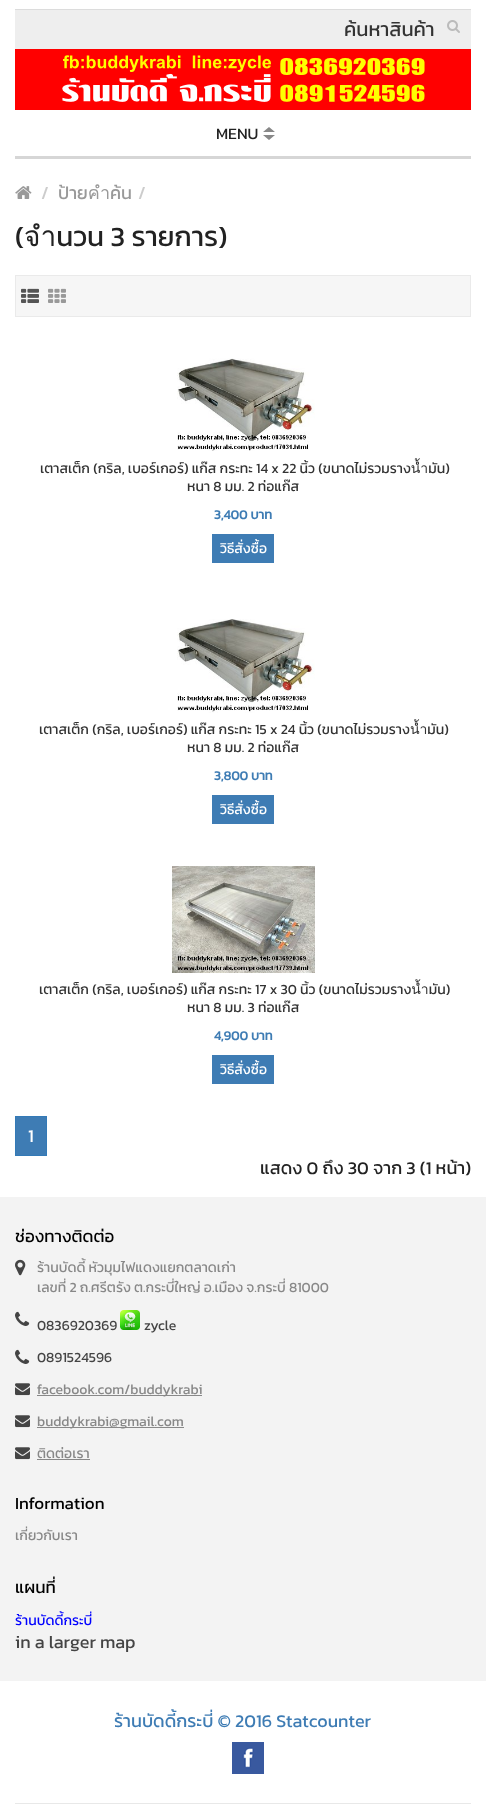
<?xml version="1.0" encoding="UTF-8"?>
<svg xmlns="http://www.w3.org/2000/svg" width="486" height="1809">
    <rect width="100%" height="100%" fill="#FFFFFF"/>
    <rect x="15" y="10" width="456" height="39" fill="#EEEEEE"/>
    <rect x="15" y="9" width="456" height="1" fill="#DCDCDC"/>
    <text x="344" y="36" font-family="Kanit" font-size="20" fill="#333333">ค้นหาสินค้า</text>
    <image x="447" y="20" width="13" height="13" href="img_01.png"/>
    <rect x="15" y="49" width="456" height="61" fill="#FF0000"/>
    <image x="62" y="55" width="363" height="47" href="img_02.png"/>
    <rect x="15" y="156" width="456" height="3" fill="#D6D6D6"/>
    <text x="216" y="139" font-family="Kanit" font-size="16" fill="#222222">MENU</text>
    <path d="M 275 132 H 263 L 269 127 Z M 263 135 H 275 L 269 140 Z" fill="#888888"/>
    <image x="15" y="186" width="17" height="13" href="img_03.png"/>
    <text x="41" y="199" font-family="Kanit" font-size="18" fill="#CCCCCC">/</text>
    <text x="58" y="199" font-family="Kanit" font-size="18" fill="#999999">ป้ายคำค้น</text>
    <text x="138" y="199" font-family="Kanit" font-size="18" fill="#CCCCCC">/</text>
    <text x="15" y="246" font-family="Kanit" font-size="28" fill="#222222">(จำนวน 3 รายการ)</text>
    <rect x="15.5" y="275.5" width="455" height="41" fill="#F6F6F6" stroke="#EAEAEA"/>
    <image x="21" y="288" width="18" height="15" href="img_04.png"/>
    <image x="48" y="288" width="18" height="15" href="img_05.png"/>
    <image x="177" y="358" width="138" height="93" href="img_06.png"/>
    <text x="40" y="473" font-family="Kanit" font-size="14" fill="#333333">เตาสเต็ก (กริล, เบอร์เกอร์) แก๊ส กระทะ 14 x 22 นิ้ว (ขนาดไม่รวมรางน้ำมัน)</text>
    <text x="187" y="491" font-family="Kanit" font-size="14" fill="#333333">หนา 8 มม. 2 ท่อแก๊ส</text>
    <text x="214" y="519" font-family="Kanit" font-size="13" font-weight="700" fill="#3E7CB4">3,400 บาท</text>
    <rect x="212" y="534" width="62" height="29" fill="#3E7CB4"/>
    <text x="220" y="553" font-family="Kanit" font-size="14" fill="#FFFFFF">วิธีสั่งซื้อ</text>
    <image x="177" y="619" width="138" height="94" href="img_07.png"/>
    <text x="39" y="734" font-family="Kanit" font-size="14" fill="#333333">เตาสเต็ก (กริล, เบอร์เกอร์) แก๊ส กระทะ 15 x 24 นิ้ว (ขนาดไม่รวมรางน้ำมัน)</text>
    <text x="187" y="752" font-family="Kanit" font-size="14" fill="#333333">หนา 8 มม. 2 ท่อแก๊ส</text>
    <text x="214" y="780" font-family="Kanit" font-size="13" font-weight="700" fill="#3E7CB4">3,800 บาท</text>
    <rect x="212" y="795" width="62" height="29" fill="#3E7CB4"/>
    <text x="220" y="814" font-family="Kanit" font-size="14" fill="#FFFFFF">วิธีสั่งซื้อ</text>
    <image x="172" y="866" width="143" height="107" href="img_08.png"/>
    <text x="39" y="994" font-family="Kanit" font-size="14" fill="#333333">เตาสเต็ก (กริล, เบอร์เกอร์) แก๊ส กระทะ 17 x 30 นิ้ว (ขนาดไม่รวมรางน้ำมัน)</text>
    <text x="187" y="1012" font-family="Kanit" font-size="14" fill="#333333">หนา 8 มม. 3 ท่อแก๊ส</text>
    <text x="214" y="1040" font-family="Kanit" font-size="13" font-weight="700" fill="#3E7CB4">4,900 บาท</text>
    <rect x="212" y="1055" width="62" height="29" fill="#3E7CB4"/>
    <text x="220" y="1074" font-family="Kanit" font-size="14" fill="#FFFFFF">วิธีสั่งซื้อ</text>
    <rect x="15.5" y="1116.5" width="31" height="39" fill="#3E7CB4" stroke="#337AB7"/>
    <text x="28" y="1142" font-family="Kanit" font-size="18" fill="#FFFFFF">1</text>
    <text x="260" y="1174" font-family="Kanit" font-size="18" fill="#222222">แสดง 0 ถึง 30 จาก 3 (1 หน้า)</text>
    <rect x="0" y="1197" width="486" height="484" fill="#F3F3F3"/>
    <text x="15" y="1242" font-family="Kanit" font-size="17" fill="#000000">ช่องทางติดต่อ</text>
    <image x="15" y="1259" width="11" height="17" href="img_09.png"/>
    <text font-family="Kanit" font-size="14" fill="#888888">
        <tspan x="37" y="1272">ร้านบัดดี้ หัวมุมไฟแดงแยกตลาดเก่า</tspan>
        <tspan x="37" y="1292">เลขที่ 2 ถ.ศรีตรัง ต.กระบี่ใหญ่ อ.เมือง จ.กระบี่ 81000</tspan>
    </text>
    <image x="15" y="1311" width="15" height="15" href="img_10.png"/>
    <text x="37" y="1330" font-family="Kanit" font-size="14" fill="#444444">0836920369</text>
    <image x="120" y="1310" width="20" height="20" href="img_11.png"/>
    <text x="144" y="1330" font-family="Kanit" font-size="14" fill="#444444">zycle</text>
    <image x="15" y="1349" width="15" height="15" href="img_10.png"/>
    <text x="37" y="1362" font-family="Kanit" font-size="14" fill="#444444">0891524596</text>
    <image x="15" y="1383" width="15" height="13" href="img_12.png"/>
    <rect x="37" y="1395" width="165" height="1" fill="#888888"/>
    <text x="37" y="1394" font-family="Kanit" font-size="14" fill="#888888">facebook.com/buddykrabi</text>
    <image x="15" y="1415" width="15" height="13" href="img_12.png"/>
    <rect x="37" y="1427" width="147" height="1" fill="#888888"/>
    <text x="37" y="1426" font-family="Kanit" font-size="14" fill="#888888">buddykrabi@gmail.com</text>
    <image x="15" y="1447" width="15" height="13" href="img_12.png"/>
    <text x="37" y="1458" font-family="Kanit" font-size="14" fill="#888888">ติดต่อเรา</text>
    <rect x="37" y="1459" width="53" height="1" fill="#888888"/>
    <text x="15" y="1509" font-family="Kanit" font-size="17" fill="#000000">Information</text>
    <text x="15" y="1540" font-family="Kanit" font-size="14" fill="#888888">เกี่ยวกับเรา</text>
    <text x="15" y="1593" font-family="Kanit" font-size="17" fill="#000000">แผนที่</text>
    <text x="15" y="1625" font-family="Kanit" font-size="14" fill="#0000FF">ร้านบัดดี้กระบี่</text>
    <text x="15" y="1648" font-family="Kanit" font-size="18" fill="#444444">in a larger map</text>
    <rect x="15" y="1803" width="456" height="1" fill="#E8E8E8"/>
    <text x="114" y="1727" font-family="Kanit" font-size="18" fill="#3E7CB4">ร้านบัดดี้กระบี่ © 2016 Statcounter</text>
    <image x="232" y="1742" width="32" height="32" href="img_13.png"/>
</svg>
